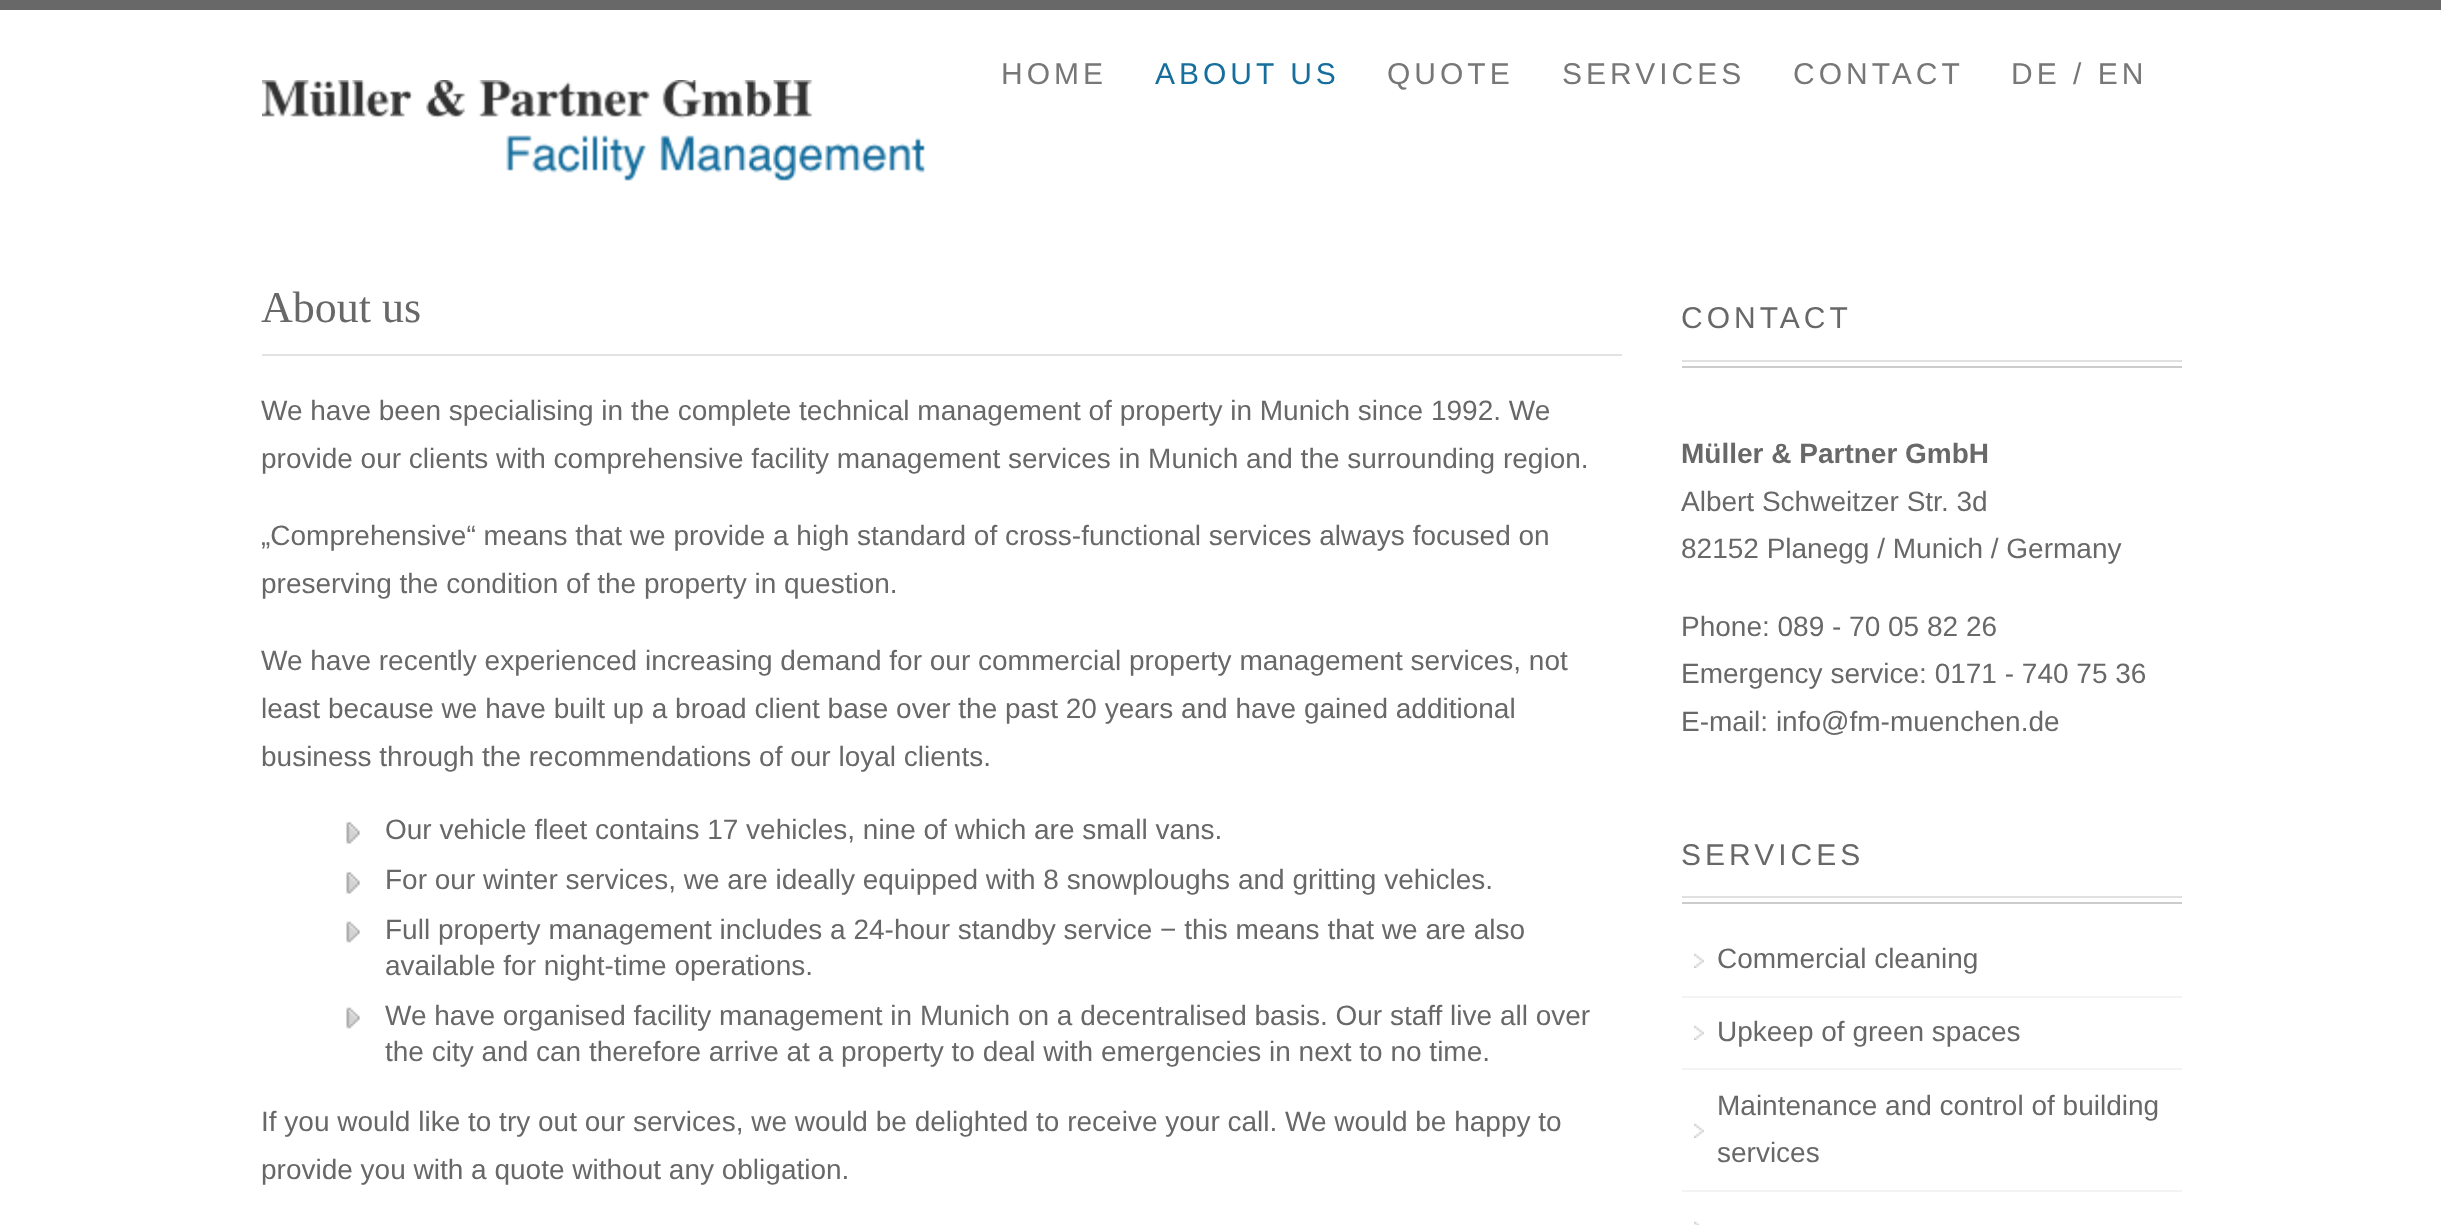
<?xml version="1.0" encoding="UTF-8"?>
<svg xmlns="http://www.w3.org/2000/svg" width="2441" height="1225">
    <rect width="100%" height="100%" fill="#FFFFFF"/>
    <rect x="0" y="0" width="2441" height="10" fill="#686868"/>
    <text x="1001" y="84" font-family="Liberation Sans" font-size="30" letter-spacing="4" fill="#777777">HOME</text>
    <text x="1155" y="84" font-family="Liberation Sans" font-size="30" letter-spacing="4" fill="#166E9D">ABOUT US</text>
    <text x="1387" y="84" font-family="Liberation Sans" font-size="30" letter-spacing="4" fill="#777777">QUOTE</text>
    <text x="1562" y="84" font-family="Liberation Sans" font-size="30" letter-spacing="4" fill="#777777">SERVICES</text>
    <text x="1793" y="84" font-family="Liberation Sans" font-size="30" letter-spacing="4" fill="#777777">CONTACT</text>
    <text x="2011" y="84" font-family="Liberation Sans" font-size="30" letter-spacing="4" fill="#777777">DE / EN</text>
    <image x="262" y="80" width="663" height="101" href="img_01.png"/>
    <text x="261" y="322" font-family="Liberation Serif" font-size="44" fill="#686868">About us</text>
    <rect x="262" y="354" width="1360" height="2" fill="#E2E2E2"/>
    <text font-family="Liberation Sans" font-size="28" fill="#686868">
        <tspan x="261" y="420">We have been specialising in the complete technical management of property in Munich since 1992. We</tspan>
        <tspan x="261" y="468">provide our clients with comprehensive facility management services in Munich and the surrounding region.</tspan>
    </text>
    <text font-family="Liberation Sans" font-size="28" fill="#686868">
        <tspan x="261" y="545">„Comprehensive“ means that we provide a high standard of cross-functional services always focused on</tspan>
        <tspan x="261" y="593">preserving the condition of the property in question.</tspan>
    </text>
    <text font-family="Liberation Sans" font-size="28" fill="#686868">
        <tspan x="261" y="670">We have recently experienced increasing demand for our commercial property management services, not</tspan>
        <tspan x="261" y="718">least because we have built up a broad client base over the past 20 years and have gained additional</tspan>
        <tspan x="261" y="766">business through the recommendations of our loyal clients.</tspan>
    </text>
    <image x="346" y="821" width="14" height="23" href="img_02.png"/>
    <text x="385" y="839" font-family="Liberation Sans" font-size="28" fill="#686868">Our vehicle fleet contains 17 vehicles, nine of which are small vans.</text>
    <image x="346" y="871" width="14" height="23" href="img_03.png"/>
    <text x="385" y="889" font-family="Liberation Sans" font-size="28" fill="#686868">For our winter services, we are ideally equipped with 8 snowploughs and gritting vehicles.</text>
    <image x="346" y="921" width="14" height="22" href="img_04.png"/>
    <text font-family="Liberation Sans" font-size="28" fill="#686868">
        <tspan x="385" y="939">Full property management includes a 24-hour standby service − this means that we are also</tspan>
        <tspan x="385" y="975">available for night-time operations.</tspan>
    </text>
    <image x="346" y="1007" width="14" height="22" href="img_05.png"/>
    <text font-family="Liberation Sans" font-size="28" fill="#686868">
        <tspan x="385" y="1025">We have organised facility management in Munich on a decentralised basis. Our staff live all over</tspan>
        <tspan x="385" y="1061">the city and can therefore arrive at a property to deal with emergencies in next to no time.</tspan>
    </text>
    <text font-family="Liberation Sans" font-size="28" fill="#686868">
        <tspan x="261" y="1131">If you would like to try out our services, we would be delighted to receive your call. We would be happy to</tspan>
        <tspan x="261" y="1179">provide you with a quote without any obligation.</tspan>
    </text>
    <text x="1681" y="328" font-family="Liberation Sans" font-size="30" letter-spacing="4" fill="#686868">CONTACT</text>
    <rect x="1682" y="360" width="500" height="2" fill="#E0E0E0"/>
    <rect x="1682" y="366" width="500" height="2" fill="#CCCCCC"/>
    <text x="1681" y="463" font-family="Liberation Sans" font-size="28" font-weight="700" fill="#686868">Müller &amp; Partner GmbH</text>
    <text font-family="Liberation Sans" font-size="28" fill="#686868">
        <tspan x="1681" y="511">Albert Schweitzer Str. 3d</tspan>
        <tspan x="1681" y="558">82152 Planegg / Munich / Germany</tspan>
    </text>
    <text font-family="Liberation Sans" font-size="28" fill="#686868">
        <tspan x="1681" y="636">Phone: 089 - 70 05 82 26</tspan>
        <tspan x="1681" y="683">Emergency service: 0171 - 740 75 36</tspan>
        <tspan x="1681" y="731">E-mail: info@fm-muenchen.de</tspan>
    </text>
    <text x="1681" y="865" font-family="Liberation Sans" font-size="30" letter-spacing="4" fill="#686868">SERVICES</text>
    <rect x="1682" y="896" width="500" height="2" fill="#E0E0E0"/>
    <rect x="1682" y="902" width="500" height="2" fill="#CCCCCC"/>
    <rect x="1682" y="996" width="500" height="2" fill="#F3F3F3"/>
    <image x="1694" y="953" width="10" height="15" href="img_06.png"/>
    <text x="1717" y="968" font-family="Liberation Sans" font-size="28" fill="#686868">Commercial cleaning</text>
    <rect x="1682" y="1068" width="500" height="2" fill="#F3F3F3"/>
    <image x="1694" y="1025" width="10" height="15" href="img_07.png"/>
    <text x="1717" y="1041" font-family="Liberation Sans" font-size="28" fill="#686868">Upkeep of green spaces</text>
    <rect x="1682" y="1190" width="500" height="2" fill="#F3F3F3"/>
    <image x="1694" y="1123" width="10" height="15" href="img_08.png"/>
    <text font-family="Liberation Sans" font-size="28" fill="#686868">
        <tspan x="1717" y="1115">Maintenance and control of building</tspan>
        <tspan x="1717" y="1162">services</tspan>
    </text>
    <image x="1694" y="1221" width="6" height="4" href="img_09.png"/>
</svg>
